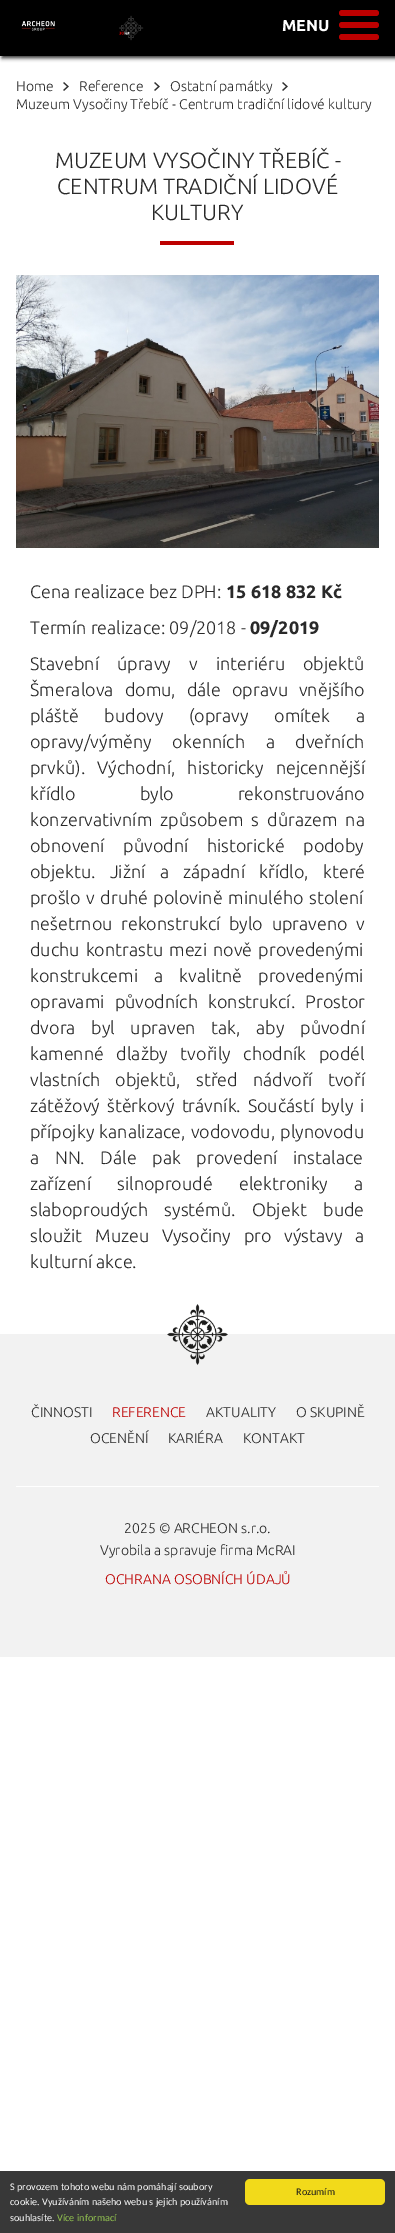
%!PS-Adobe-3.0
%%BoundingBox: 0 0 395 2233
%%LanguageLevel: 3
%%Pages: 1
%%EndComments
%%BeginProlog
/setalpha { dup .setfillconstantalpha .setstrokeconstantalpha } def
/rrect { 5 dict begin { /r /h /w /y /x } { exch def } forall
  x r add y moveto x w add y 2 copy h add r arct x w add y h add x 1 index r arct
  x y h add x y r arct x y 2 copy exch w add exch r arct closepath end } def
/softshadow { 12 dict begin { /a /b /q /h /w /y /x } { exch def } forall gsave /was 0 def
  9 -2 -9 { dup b mul 4 div /e exch def 1 sub .425 mul 2.718 exch exp 1 add a .99 .min exch div /now exch def
    1 1 now sub 1 was sub div sub setalpha /was now def
    w h .min e 2 mul add 0 gt { x e sub y e sub w e 2 mul add h e 2 mul add
      q e add b .6 mul add w h .min 2 div e add .min 0 .max rrect fill } if } for grestore end } def
/drawimage { 5 dict begin { /h /w /y /x /name } { exch def } forall
  gsave x y translate w h scale
  w h 8 [w 0 0 h 0 0] name (r) file false 3 colorimage grestore end } def
%%EndProlog
%%BeginSetup
<< /PageSize [395 2233] /PageUsesTransparency true >> setpagedevice
%%EndSetup
%%Page: 1 1
0 .pushpdf14devicefilter
0 2233 translate 1 -1 scale
4 setmiterlimit
1 setgray
0 0 395 2233 rectfill
0.161 setgray
2 2 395 56 0 2 1 softshadow
0 setgray
0 0 395 56 rectfill
(images/1.raw) 21 21 34 10 drawimage
(images/2.raw) 119 15 25 26 drawimage
0.741 0 0 setrgbcolor
339 10 40 6 3 rrect fill
339 22 40 6 3 rrect fill
339 34 40 6 3 rrect fill
(images/3.raw) 63 82 6 9 drawimage
(images/3.raw) 154 82 6 9 drawimage
(images/3.raw) 282 82 6 9 drawimage
160 241 74 4 rectfill
(images/4.raw) 16 275 363 273 drawimage
0.949 setgray
0 1334 395 323 rectfill
1 setgray
16 1486 363 1 rectfill
(images/5.raw) 167 1304 61 61 drawimage
0.22 setgray
0 2171 395 62 rectfill
0.949 0.855 0.102 setrgbcolor
245 2179 140 26 5 rrect fill
/Ubuntu-Bold [16 0 0 -16 0 0] selectfont
1 setgray
282 31 moveto (MENU) show
/Ubuntu-Light [14 0 0 -14 0 0] selectfont
0.161 setgray
16 91 moveto (Home) show
79 91 moveto (Reference) show
170 91 moveto (Ostatní památky) show
16 109 moveto (Muzeum Vysočiny Třebíč - Centrum tradiční lidové kultury) show
/Ubuntu-Light [22 0 0 -22 0 0] selectfont
55 168 moveto (MUZEUM VYSOČINY TŘEBÍČ -) show
57 194 moveto (CENTRUM TRADIČNÍ LIDOVÉ) show
151 220 moveto (KULTURY) show
/Ubuntu-Light [18 0 0 -18 0 0] selectfont
30 598 moveto (Cena realizace bez DPH:) show
/Ubuntu-Bold [18 0 0 -18 0 0] selectfont
226 598 moveto (15 618 832 Kč) show
/Ubuntu-Light [18 0 0 -18 0 0] selectfont
30 634 moveto (Termín realizace: 09/2018 -) show
/Ubuntu-Bold [18 0 0 -18 0 0] selectfont
250 634 moveto (09/2019) show
/Ubuntu-Light [18 0 0 -18 0 0] selectfont
30 670 moveto 14 0 32 (Stavební úpravy v interiéru objektů) widthshow
30 696 moveto 7 0 32 (Šmeralova domu, dále opravu vnějšího) widthshow
30 722 moveto 21.5 0 32 (pláště budovy \(opravy omítek a) widthshow
30 748 moveto 16.5 0 32 (opravy/výměny okenních a dveřních) widthshow
30 774 moveto 8 0 32 (prvků\). Východní, historicky nejcennější) widthshow
30 800 moveto 60 0 32 (křídlo bylo rekonstruováno) widthshow
30 826 moveto 4 0 32 (konzervativním způsobem s důrazem na) widthshow
30 852 moveto 14.5 0 32 (obnovení původní historické podoby) widthshow
30 878 moveto 10 0 32 (objektu. Jižní a západní křídlo, které) widthshow
30 904 moveto 1.5 0 32 (prošlo v druhé polovině minulého stolení) widthshow
30 930 moveto 4.5 0 32 (nešetrnou rekonstrukcí bylo upraveno v) widthshow
30 956 moveto 2 0 32 (duchu kontrastu mezi nově provedenými) widthshow
30 982 moveto 12 0 32 (konstrukcemi a kvalitně provedenými) widthshow
30 1008 moveto 6 0 32 (opravami původních konstrukcí. Prostor) widthshow
30 1034 moveto 11.5 0 32 (dvora byl upraven tak, aby původní) widthshow
30 1060 moveto 8.5 0 32 (kamenné dlažby tvořily chodník podél) widthshow
30 1086 moveto 11 0 32 (vlastních objektů, střed nádvoří tvoří) widthshow
30 1112 moveto 2.75 0 32 (zátěžový štěrkový trávník. Součástí byly i) widthshow
30 1138 moveto 1 0 32 (přípojky kanalizace, vodovodu, plynovodu) widthshow
30 1164 moveto 11.5 0 32 (a NN. Dále pak provedení instalace) widthshow
30 1190 moveto 22 0 32 (zařízení silnoproudé elektroniky a) widthshow
30 1216 moveto 12.5 0 32 (slaboproudých systémů. Objekt bude) widthshow
30 1242 moveto 8.5 0 32 (sloužit Muzeu Vysočiny pro výstavy a) widthshow
30 1268 moveto (kulturní akce.) show
/Ubuntu-Light [14 0 0 -14 0 0] selectfont
31 1417 moveto (ČINNOSTI) show
0.741 0 0 setrgbcolor
112 1417 moveto (REFERENCE) show
0.161 setgray
206 1417 moveto (AKTUALITY) show
296 1417 moveto (O SKUPINĚ) show
90 1443 moveto (OCENĚNÍ) show
168 1443 moveto (KARIÉRA) show
243 1443 moveto (KONTAKT) show
124 1533 moveto (2025 © ARCHEON s.r.o.) show
100 1555 moveto (Vyrobila a spravuje firma McRAI) show
0.741 0 0 setrgbcolor
105 1584 moveto (OCHRANA OSOBNÍCH ÚDAJŮ) show
/Carlito-Regular [10.2 0 0 -10.2 0 0] selectfont
1 setgray
10 2190 moveto (S provozem tohoto webu nám pomáhají soubory) show
10 2205 moveto (cookie. Využíváním našeho webu s jejich používáním) show
10 2221 moveto (souhlasíte.) show
0.58 0.773 0.314 setrgbcolor
57 2221 moveto (Více informací) show
0.102 setgray
296 2195 moveto (Rozumím) show
.poppdf14devicefilter showpage
%%EOF
